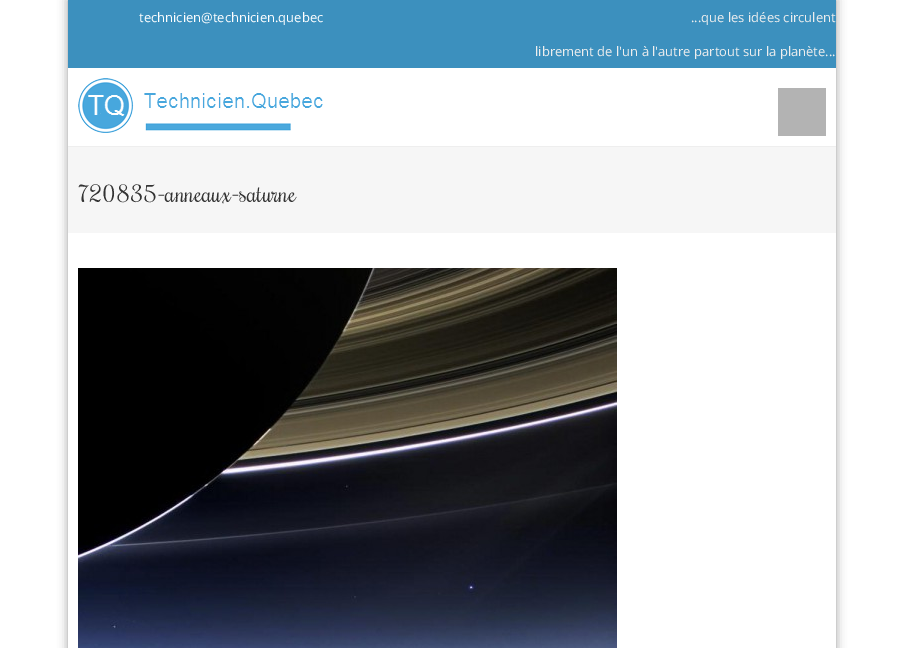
%!PS-Adobe-3.0
%%BoundingBox: 0 0 903 648
%%LanguageLevel: 3
%%Pages: 1
%%EndComments
%%BeginProlog
/setalpha { dup .setfillconstantalpha .setstrokeconstantalpha } def
/rrect { 5 dict begin { /r /h /w /y /x } { exch def } forall
  x r add y moveto x w add y 2 copy h add r arct x w add y h add x 1 index r arct
  x y h add x y r arct x y 2 copy exch w add exch r arct closepath end } def
/softshadow { 12 dict begin { /a /b /q /h /w /y /x } { exch def } forall gsave /was 0 def
  9 -2 -9 { dup b mul 4 div /e exch def 1 sub .425 mul 2.718 exch exp 1 add a .99 .min exch div /now exch def
    1 1 now sub 1 was sub div sub setalpha /was now def
    w h .min e 2 mul add 0 gt { x e sub y e sub w e 2 mul add h e 2 mul add
      q e add b .6 mul add w h .min 2 div e add .min 0 .max rrect fill } if } for grestore end } def
/drawimage { 5 dict begin { /h /w /y /x /name } { exch def } forall
  gsave x y translate w h scale
  w h 8 [w 0 0 h 0 0] name (r) file false 3 colorimage grestore end } def
%%EndProlog
%%BeginSetup
<< /PageSize [903 648] /PageUsesTransparency true >> setpagedevice
%%EndSetup
%%Page: 1 1
0 .pushpdf14devicefilter
0 648 translate 1 -1 scale
4 setmiterlimit
1 setgray
0 0 903 648 rectfill
gsave
newpath 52 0 moveto 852 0 lineto 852 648 lineto 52 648 lineto closepath 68 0 moveto 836 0 lineto 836 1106 lineto 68 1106 lineto closepath eoclip newpath
0.6 setgray
68 0 768 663 0 5 1 softshadow
grestore
0.235 0.565 0.745 setrgbcolor
68 0 768 68 rectfill
0.933 setgray
68 146 768 1 rectfill
(images/1.raw) 78 78 245 55 drawimage
0.702 setgray
778 88 48 48 rectfill
0.965 setgray
68 147 768 86 rectfill
(images/2.raw) 78 268 539 380 drawimage
/OpenSans-Regular [13 0 0 -13 0 0] selectfont
1 setgray
139 22 moveto (technicien@technicien.quebec) show
0.933 setgray
691 22 moveto (...que les idées circulent) show
535 56 moveto (librement de l'un à l'autre partout sur la planète...) show
/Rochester-Regular [24 0 0 -24 0 0] selectfont
0.2 setgray
78 202 moveto (720835-anneaux-saturne) show
.poppdf14devicefilter showpage
%%EOF
